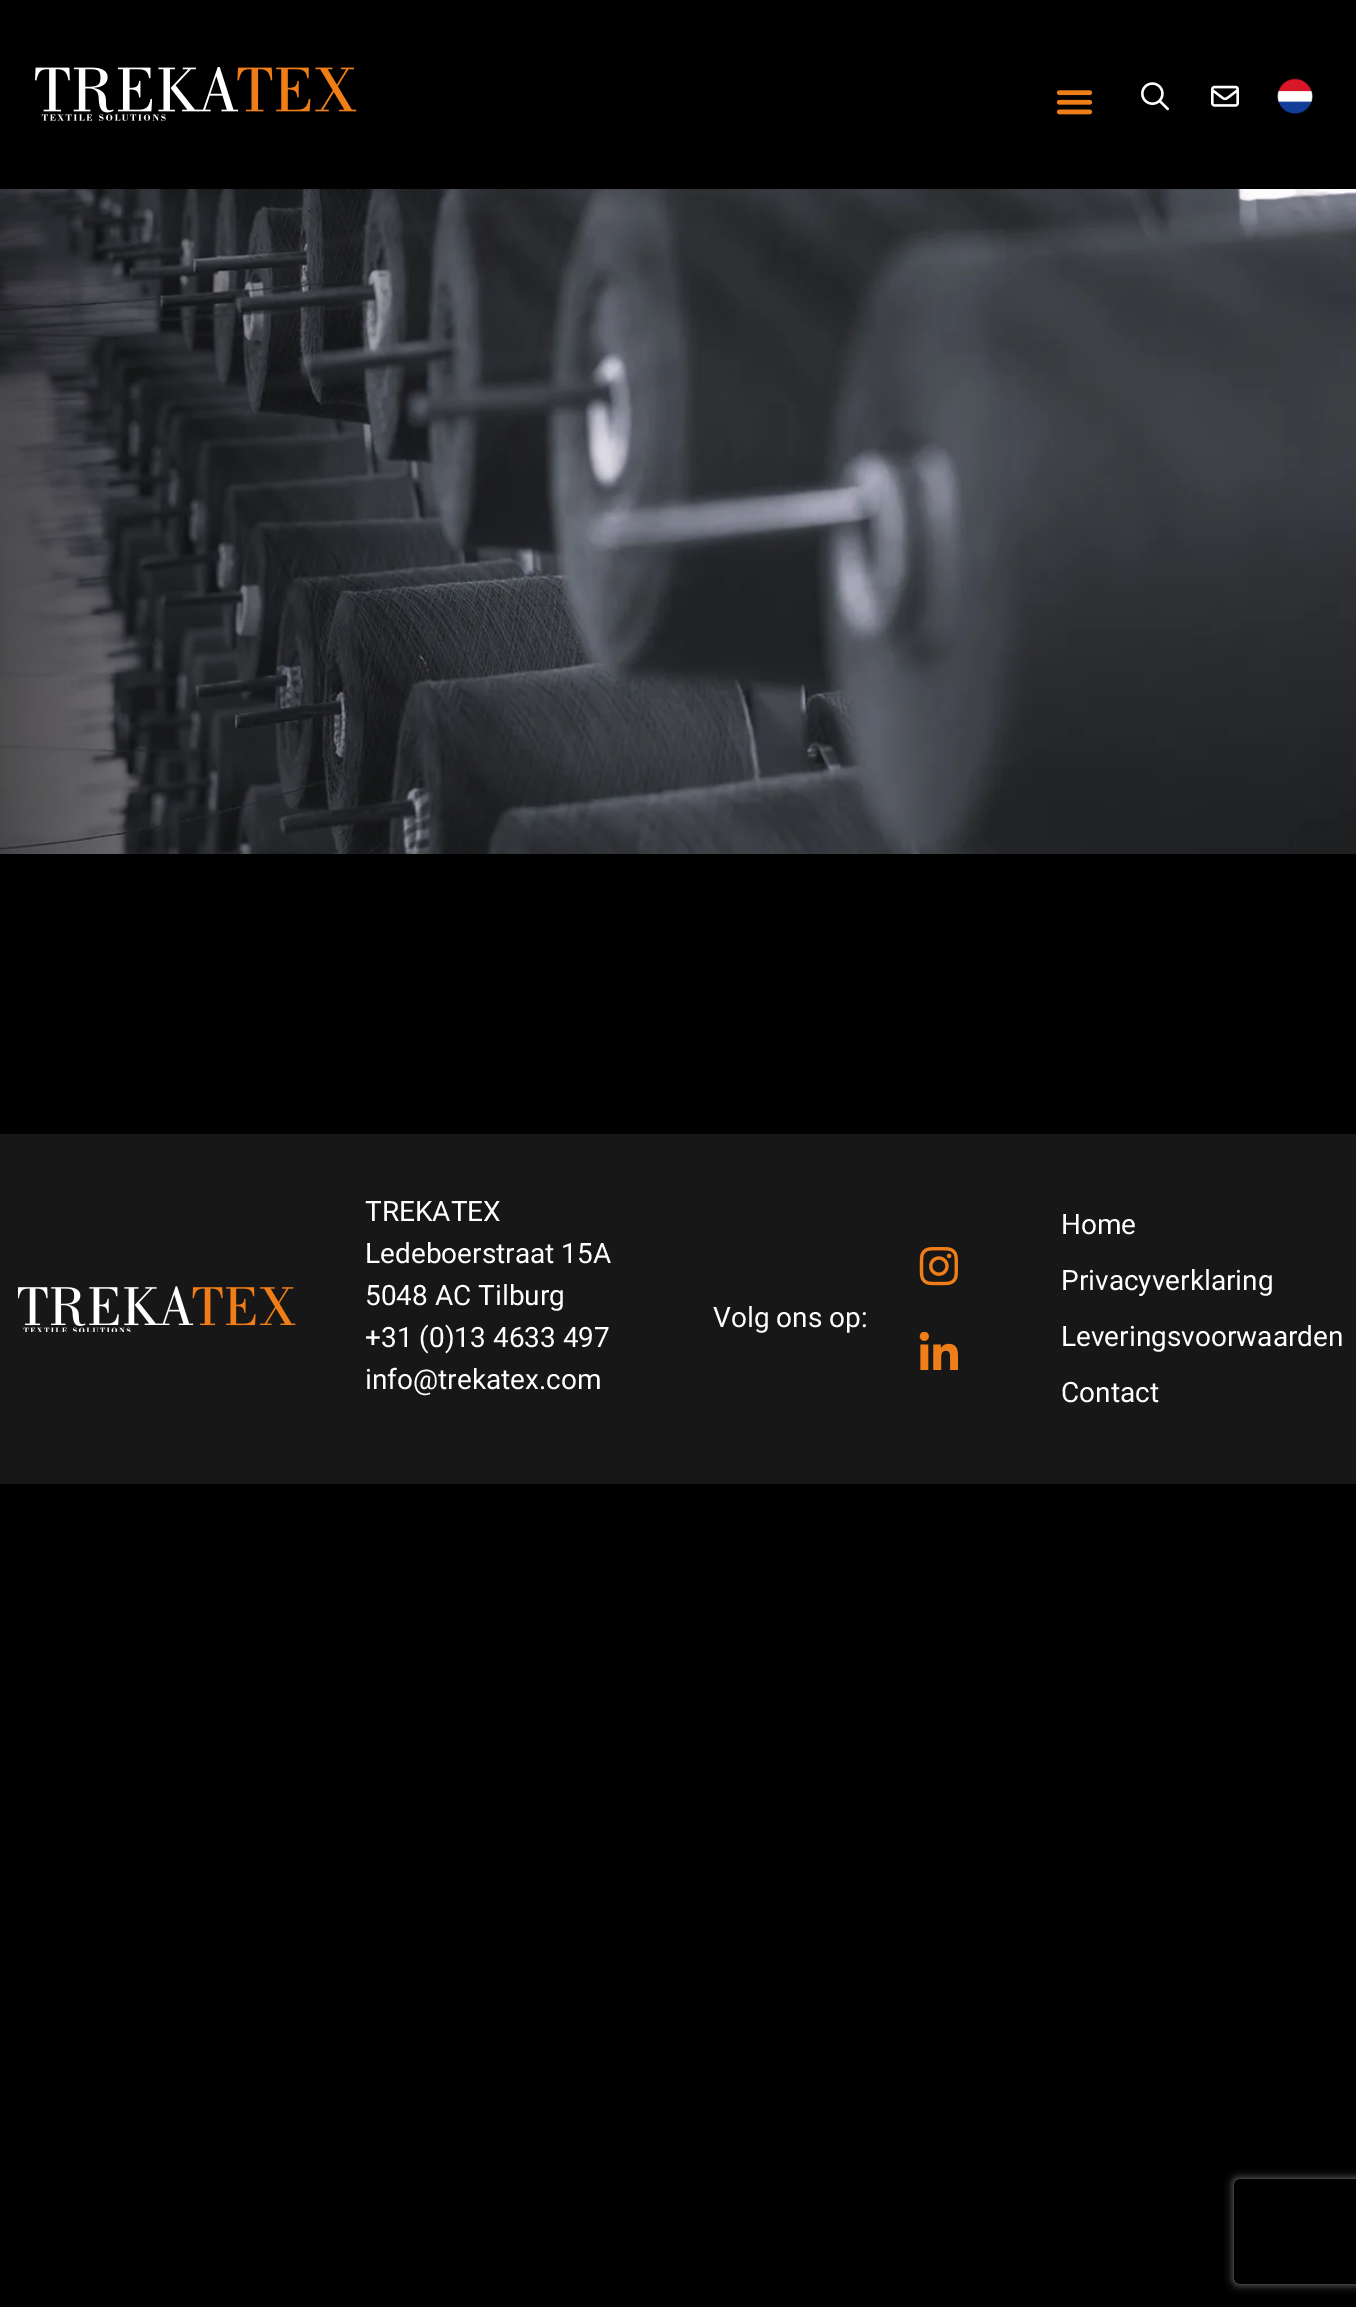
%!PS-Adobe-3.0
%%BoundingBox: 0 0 1356 2307
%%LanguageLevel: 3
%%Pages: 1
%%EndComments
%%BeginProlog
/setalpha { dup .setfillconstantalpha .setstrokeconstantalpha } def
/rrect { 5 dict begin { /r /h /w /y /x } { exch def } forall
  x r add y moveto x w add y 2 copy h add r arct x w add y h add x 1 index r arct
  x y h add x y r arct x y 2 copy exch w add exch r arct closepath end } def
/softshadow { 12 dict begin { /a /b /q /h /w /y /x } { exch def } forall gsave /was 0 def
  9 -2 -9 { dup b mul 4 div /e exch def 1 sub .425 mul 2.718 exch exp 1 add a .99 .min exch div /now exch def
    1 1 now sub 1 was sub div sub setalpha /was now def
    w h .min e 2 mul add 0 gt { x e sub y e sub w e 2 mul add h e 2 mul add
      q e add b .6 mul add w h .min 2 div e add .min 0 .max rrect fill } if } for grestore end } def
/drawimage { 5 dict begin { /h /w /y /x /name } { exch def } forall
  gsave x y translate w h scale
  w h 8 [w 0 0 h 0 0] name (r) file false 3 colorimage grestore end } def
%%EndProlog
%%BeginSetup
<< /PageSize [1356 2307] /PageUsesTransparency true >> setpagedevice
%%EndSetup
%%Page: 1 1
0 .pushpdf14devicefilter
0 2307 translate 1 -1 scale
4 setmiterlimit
0 setgray
0 0 1356 2307 rectfill
(images/1.raw) 35 67 322 54 drawimage
(images/2.raw) 1056 90 37 25 drawimage
(images/3.raw) 1141 82 28 29 drawimage
(images/4.raw) 1211 85 28 22 drawimage
(images/5.raw) 1277 78 36 36 drawimage
(images/6.raw) 0 189 1356 665 drawimage
0.094 0.09 0.09 setrgbcolor
0 1134 1356 350 rectfill
(images/7.raw) 18 1286 278 46 drawimage
(images/8.raw) 919 1247 39 39 drawimage
(images/9.raw) 919 1332 39 38 drawimage
gsave
newpath 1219 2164 moveto 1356 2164 lineto 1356 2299 lineto 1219 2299 lineto closepath 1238 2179 moveto 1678 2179 lineto 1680 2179 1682 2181 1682 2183 curveto 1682 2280 lineto 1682 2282 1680 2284 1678 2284 curveto 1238 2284 lineto 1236 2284 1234 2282 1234 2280 curveto 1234 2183 lineto 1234 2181 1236 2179 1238 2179 curveto closepath eoclip newpath
0.502 setgray
1234 2179 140 105 4 4.5 1 softshadow
grestore
/Roboto-Regular [28 0 0 -28 0 0] selectfont
1 setgray
365 1221 moveto (TREKATEX) show
365 1263 moveto (Ledeboerstraat 15A) show
365 1305 moveto (5048 AC Tilburg) show
365 1347 moveto (+31 \(0\)13 4633 497) show
365 1389 moveto (info@trekatex.com) show
713 1327 moveto (Volg ons op:) show
1061 1234 moveto (Home) show
1061 1290 moveto (Privacyverklaring) show
1061 1346 moveto (Leveringsvoorwaarden) show
1061 1402 moveto (Contact) show
.poppdf14devicefilter showpage
%%EOF
